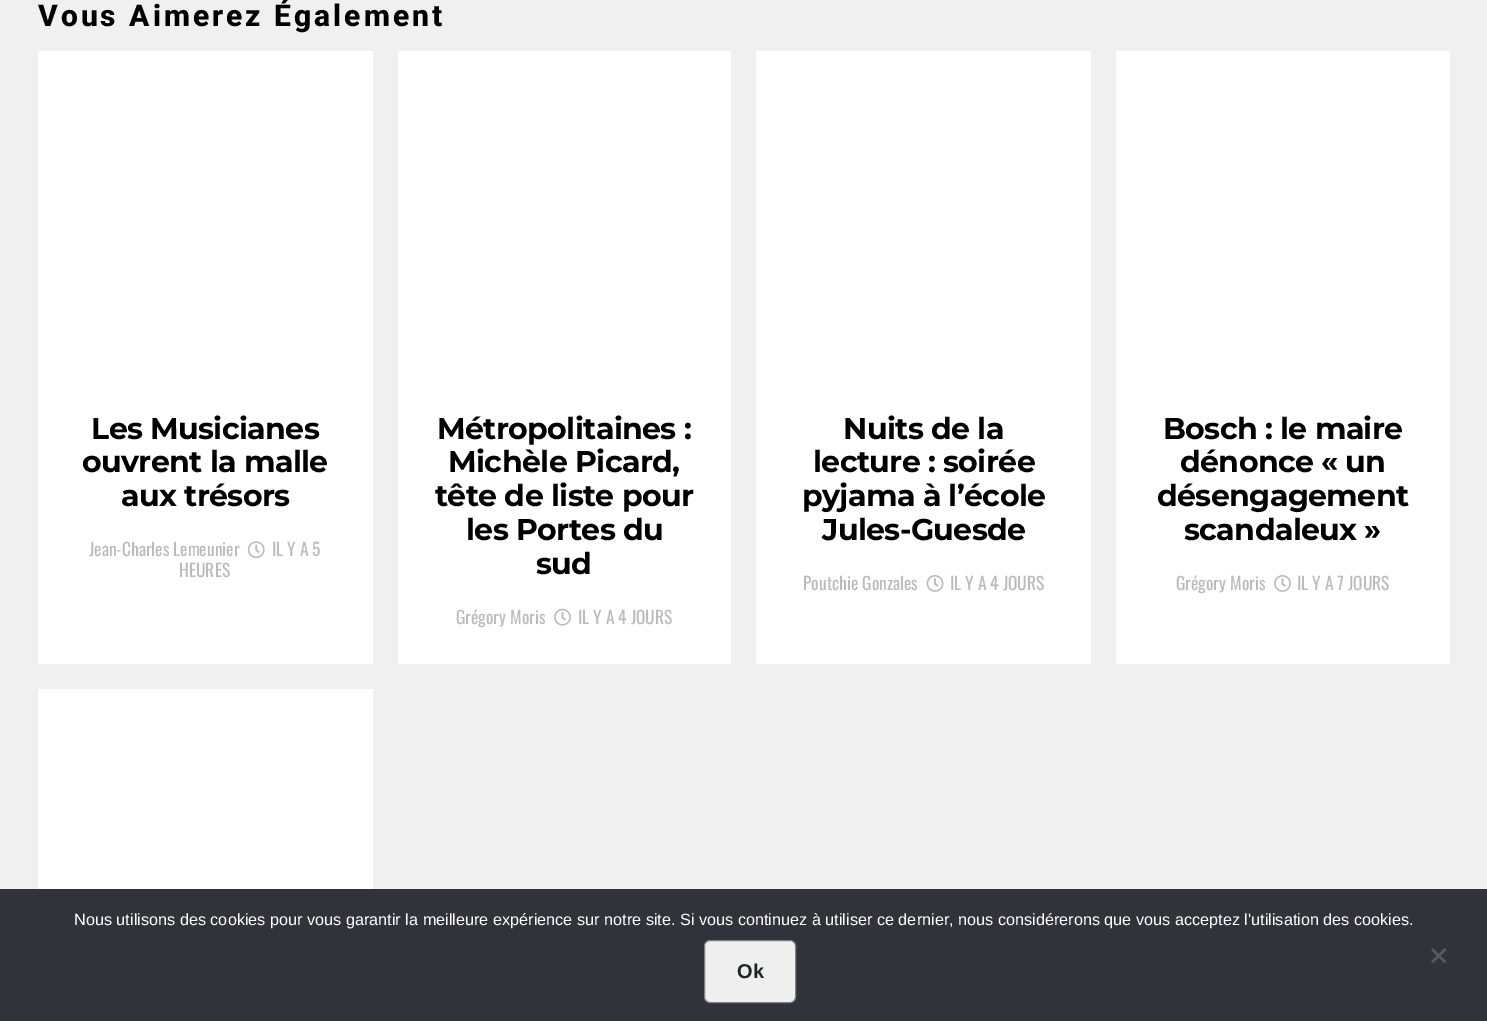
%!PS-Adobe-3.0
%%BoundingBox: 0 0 1487 1021
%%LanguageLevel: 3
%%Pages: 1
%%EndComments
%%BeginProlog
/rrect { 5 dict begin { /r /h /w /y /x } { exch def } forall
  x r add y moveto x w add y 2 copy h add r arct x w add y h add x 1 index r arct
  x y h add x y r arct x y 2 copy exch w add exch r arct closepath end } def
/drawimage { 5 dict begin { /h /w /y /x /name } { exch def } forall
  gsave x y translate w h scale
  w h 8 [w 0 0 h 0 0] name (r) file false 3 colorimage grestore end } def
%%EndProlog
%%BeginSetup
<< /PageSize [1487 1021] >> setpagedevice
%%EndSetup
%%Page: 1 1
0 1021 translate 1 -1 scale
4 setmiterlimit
0.941 setgray
0 0 1487 1021 rectfill
1 setgray
38 51 335 613 rectfill
(images/1.raw) 247 541 18 18 drawimage
398 51 333 613 rectfill
(images/2.raw) 554 608 17 18 drawimage
756 51 335 613 rectfill
(images/3.raw) 926 575 18 17 drawimage
1116 51 334 613 rectfill
(images/4.raw) 1274 575 17 17 drawimage
38 689 335 200 rectfill
0.196 0.196 0.227 setrgbcolor
0 889 1487 132 rectfill
0.349 0.349 0.365 setrgbcolor
newpath 1444.5 948 moveto 1446.5 950 lineto 1433 963 lineto 1431 961.5 lineto closepath fill
newpath 1431 950 moveto 1433 948 lineto 1446.5 961.5 lineto 1444.5 963 lineto closepath fill
0.937 setgray
704.5 940.5 91 62 5.5 rrect gsave fill grestore
0.502 setgray
stroke
/Roboto-ExtraBold [30 0 0 -30 0 0] selectfont
0 setgray
38 26 moveto 3 0 (Vous Aimerez Également) ashow
/Montserrat-Bold [30 0 0 -30 0 0] selectfont
91 439 moveto -0.6 0 (Les Musicianes) ashow
82 472 moveto -0.6 0 (ouvrent la malle) ashow
121 506 moveto -0.6 0 (aux trésors) ashow
/Oswald-Regular [17.5 0 0 -17.5 0 0] selectfont
0.733 setgray
89 556 moveto (Jean-Charles Lemeunier) show
272 556 moveto (IL Y A 5) show
179 577 moveto (HEURES) show
/Montserrat-Bold [30 0 0 -30 0 0] selectfont
0 setgray
437 439 moveto -0.6 0 (Métropolitaines :) ashow
448 472 moveto -0.6 0 (Michèle Picard,) ashow
435 506 moveto -0.6 0 (tête de liste pour) ashow
466 540 moveto -0.6 0 (les Portes du) ashow
536 574 moveto -0.6 0 (sud) ashow
/Oswald-Regular [17.5 0 0 -17.5 0 0] selectfont
0.733 setgray
456 624 moveto (Grégory Moris) show
578 624 moveto (IL Y A 4 JOURS) show
/Montserrat-Bold [30 0 0 -30 0 0] selectfont
0 setgray
843 439 moveto -0.6 0 (Nuits de la) ashow
813 472 moveto -0.6 0 (lecture : soirée) ashow
802 506 moveto -0.6 0 (pyjama à l’école) ashow
822 540 moveto -0.6 0 (Jules-Guesde) ashow
/Oswald-Regular [17.5 0 0 -17.5 0 0] selectfont
0.733 setgray
803 590 moveto (Poutchie Gonzales) show
950 590 moveto (IL Y A 4 JOURS) show
/Montserrat-Bold [30 0 0 -30 0 0] selectfont
0 setgray
1163 439 moveto -0.6 0 (Bosch : le maire) ashow
1180 472 moveto -0.6 0 (dénonce « un) ashow
1157 506 moveto -0.6 0 (désengagement) ashow
1184 540 moveto -0.6 0 (scandaleux ») ashow
/Oswald-Regular [17.5 0 0 -17.5 0 0] selectfont
0.733 setgray
1176 590 moveto (Grégory Moris) show
1297 590 moveto (IL Y A 7 JOURS) show
/LiberationSans-Regular [16.25 0 0 -16.25 0 0] selectfont
1 setgray
74 925 moveto (Nous utilisons des cookies pour vous garantir la meilleure expérience sur notre site. Si vous continuez à utiliser ce dernier, nous considérerons que vous acceptez l'utilisation des cookies.) show
/LiberationSans-Bold [20 0 0 -20 0 0] selectfont
0.129 0.145 0.161 setrgbcolor
737 978 moveto (Ok) show
showpage
%%EOF
